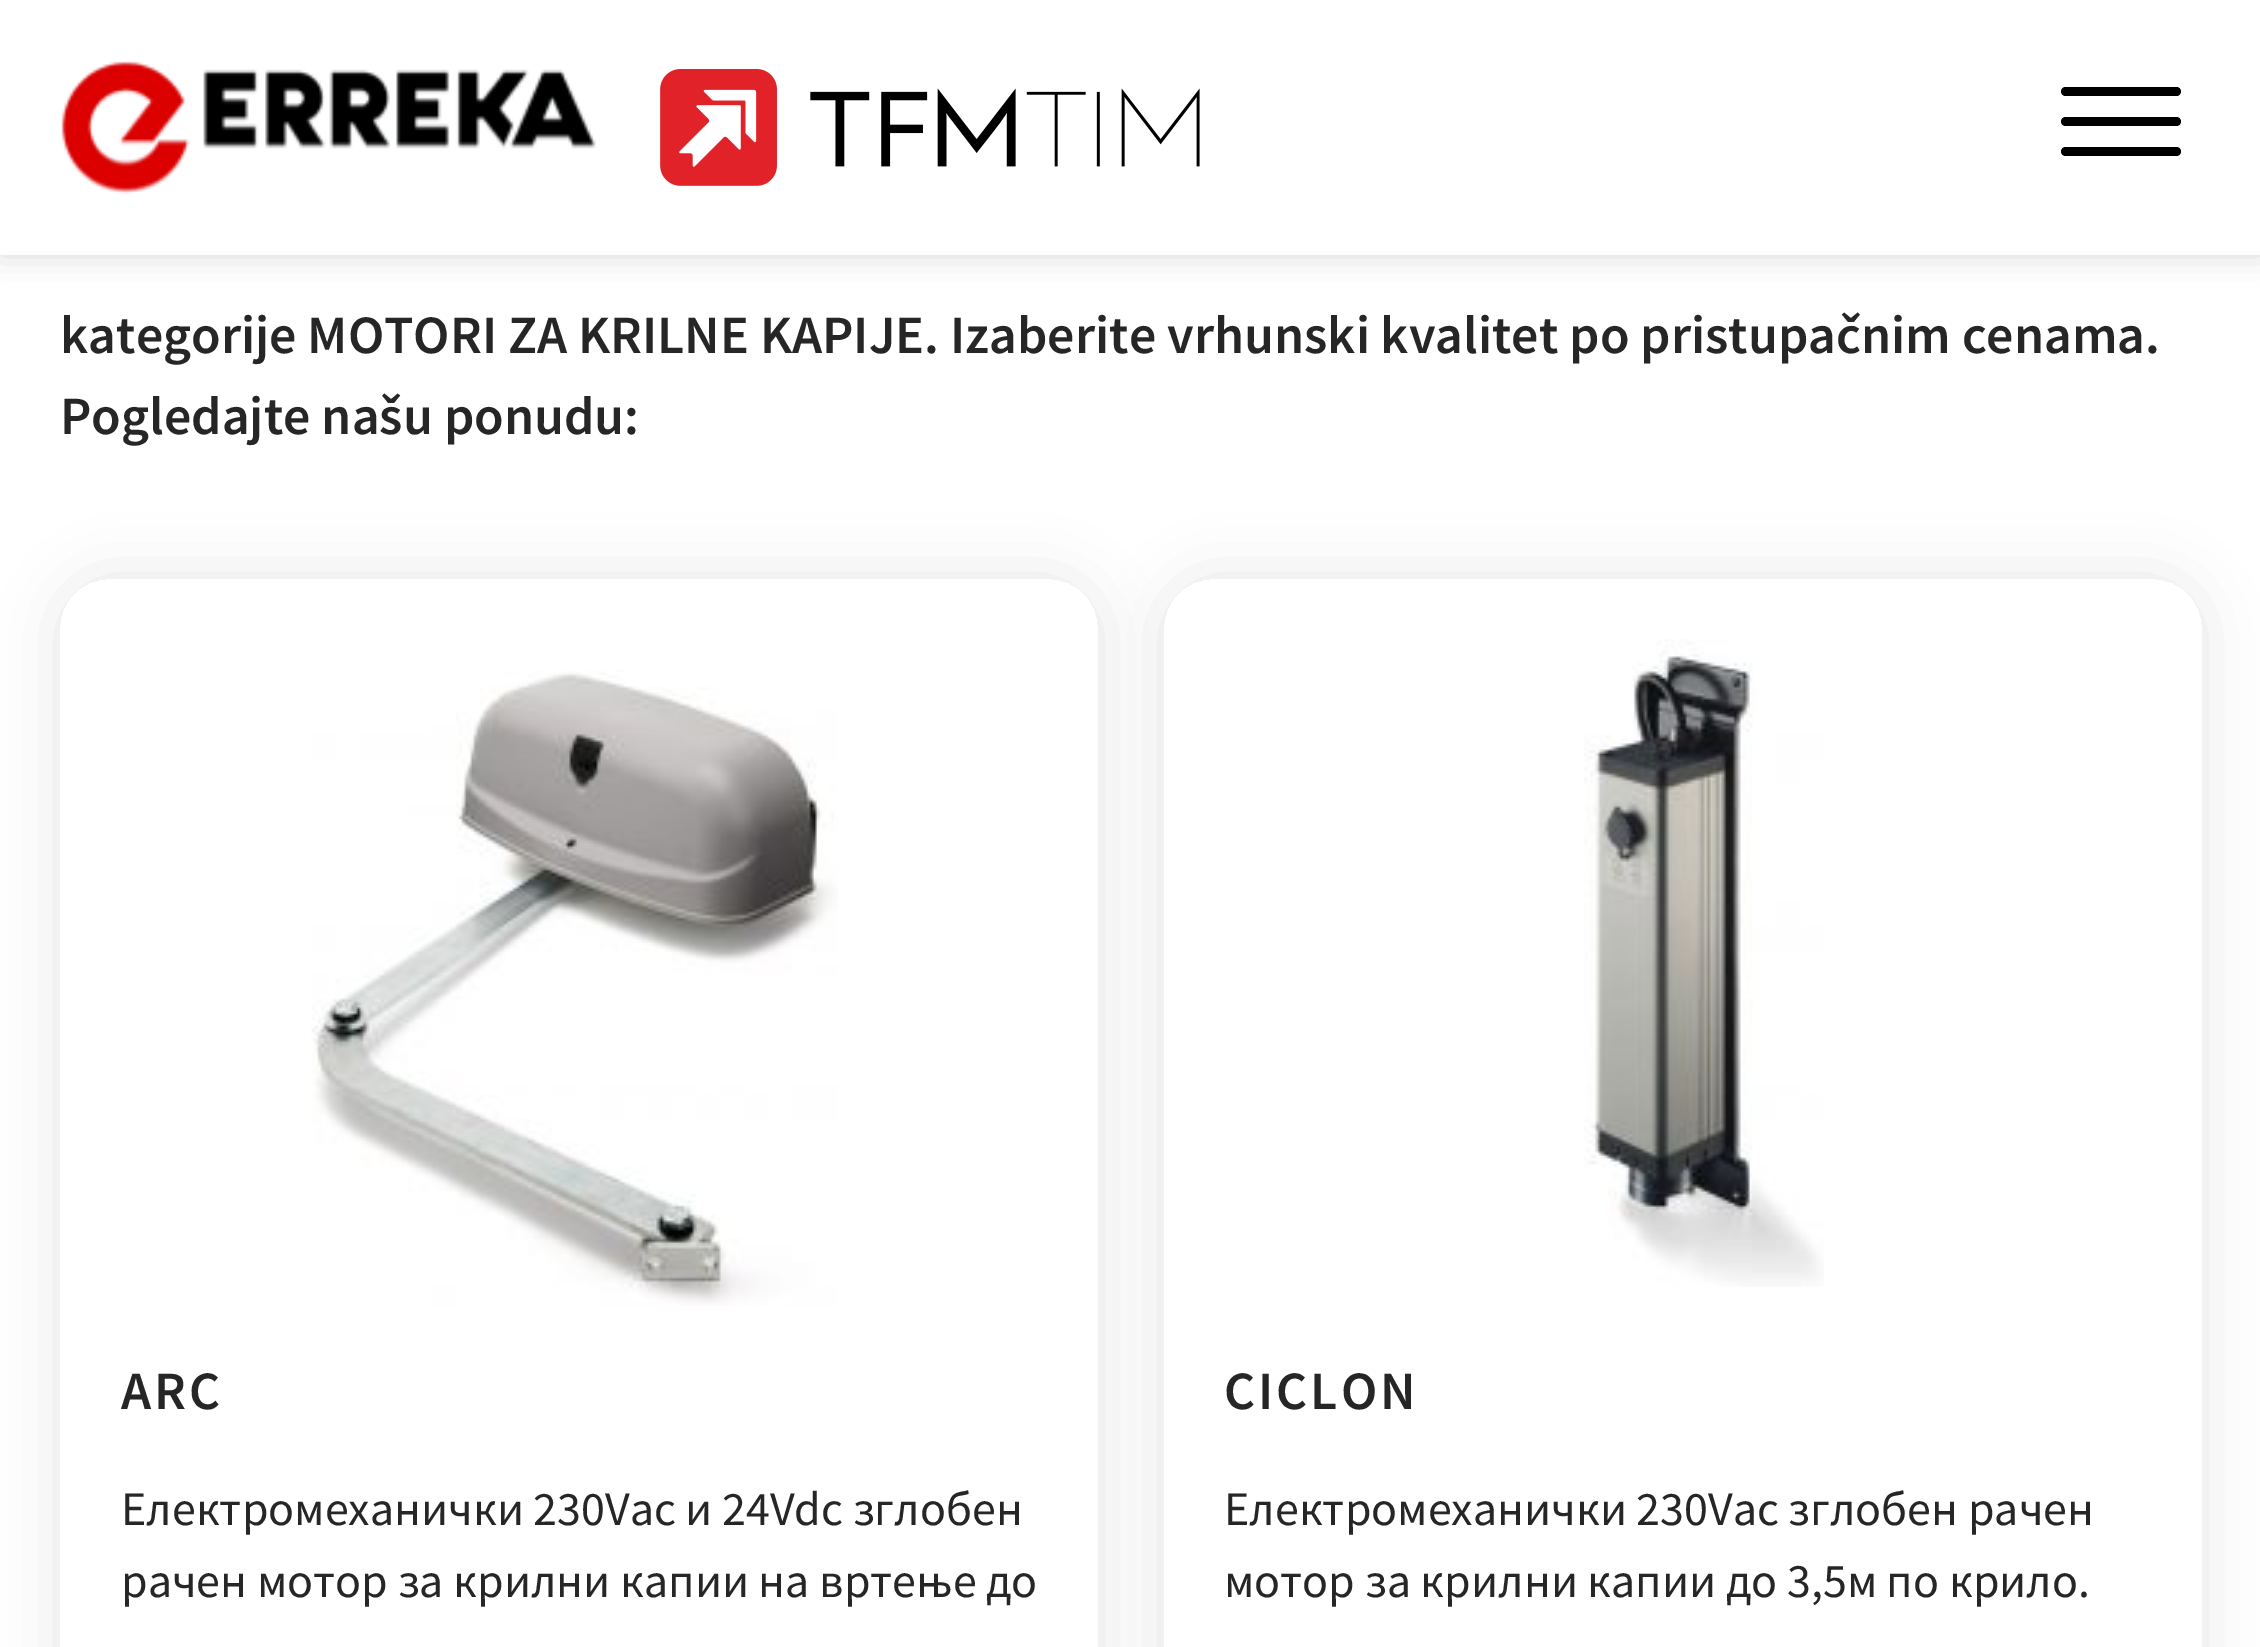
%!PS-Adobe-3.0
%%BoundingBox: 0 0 2260 1647
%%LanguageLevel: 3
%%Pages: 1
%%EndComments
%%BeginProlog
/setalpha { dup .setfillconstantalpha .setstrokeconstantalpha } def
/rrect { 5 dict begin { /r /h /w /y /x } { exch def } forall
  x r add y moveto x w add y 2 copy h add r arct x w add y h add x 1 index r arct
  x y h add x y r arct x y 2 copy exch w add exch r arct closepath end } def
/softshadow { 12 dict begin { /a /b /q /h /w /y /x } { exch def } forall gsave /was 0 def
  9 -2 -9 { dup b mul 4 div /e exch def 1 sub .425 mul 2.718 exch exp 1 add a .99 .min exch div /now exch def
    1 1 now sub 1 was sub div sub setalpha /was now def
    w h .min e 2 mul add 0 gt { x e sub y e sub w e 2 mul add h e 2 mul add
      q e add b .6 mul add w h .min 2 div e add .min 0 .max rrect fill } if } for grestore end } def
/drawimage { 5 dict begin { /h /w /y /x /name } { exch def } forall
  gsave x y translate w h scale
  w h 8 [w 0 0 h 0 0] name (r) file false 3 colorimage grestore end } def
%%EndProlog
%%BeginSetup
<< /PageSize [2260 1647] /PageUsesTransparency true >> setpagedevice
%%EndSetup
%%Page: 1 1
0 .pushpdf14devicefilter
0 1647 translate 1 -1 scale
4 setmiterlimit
1 setgray
0 0 2260 1647 rectfill
0 setgray
0 0 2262 255 0 15 0.15 softshadow
1 setgray
0 0 2260 255 rectfill
(images/1.raw) 61 61 535 134 drawimage
(images/2.raw) 660 69 540 117 drawimage
0 setgray
newpath 2065.5 87 moveto 2121 87 lineto 2121 96 lineto 2065.5 96 lineto 2063 96 2061 94 2061 91.5 curveto 2061 89 2063 87 2065.5 87 curveto closepath fill
newpath 2121 87 moveto 2176.5 87 lineto 2179 87 2181 89 2181 91.5 curveto 2181 94 2179 96 2176.5 96 curveto 2121 96 lineto closepath fill
newpath 2065.5 117 moveto 2121 117 lineto 2121 126 lineto 2065.5 126 lineto 2063 126 2061 124 2061 121.5 curveto 2061 119 2063 117 2065.5 117 curveto closepath fill
newpath 2121 117 moveto 2176.5 117 lineto 2179 117 2181 119 2181 121.5 curveto 2181 124 2179 126 2176.5 126 curveto 2121 126 lineto closepath fill
newpath 2065.5 147 moveto 2121 147 lineto 2121 156 lineto 2065.5 156 lineto 2063 156 2061 154 2061 151.5 curveto 2061 149 2063 147 2065.5 147 curveto closepath fill
newpath 2121 147 moveto 2176.5 147 lineto 2179 147 2181 149 2181 151.5 curveto 2181 154 2179 156 2176.5 156 curveto 2121 156 lineto closepath fill
gsave
newpath 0 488 moveto 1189 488 lineto 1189 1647 lineto 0 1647 lineto closepath 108 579 moveto 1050 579 lineto 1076.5 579 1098 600.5 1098 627 curveto 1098 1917 lineto 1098 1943.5 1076.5 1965 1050 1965 curveto 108 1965 lineto 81.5 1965 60 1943.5 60 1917 curveto 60 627 lineto 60 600.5 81.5 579 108 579 curveto closepath eoclip newpath
60 579 1038 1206 48 30 0.1 softshadow
grestore
(images/3.raw) 311 670 527 636 drawimage
gsave
newpath 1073 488 moveto 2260 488 lineto 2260 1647 lineto 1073 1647 lineto closepath 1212 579 moveto 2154 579 lineto 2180.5 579 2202 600.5 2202 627 curveto 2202 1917 lineto 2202 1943.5 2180.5 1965 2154 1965 curveto 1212 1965 lineto 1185.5 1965 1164 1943.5 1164 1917 curveto 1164 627 lineto 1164 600.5 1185.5 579 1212 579 curveto closepath eoclip newpath
1164 579 1038 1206 48 30 0.1 softshadow
grestore
(images/4.raw) 1584 639 240 648 drawimage
/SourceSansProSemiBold-SemiBold [54 0 0 -54 0 0] selectfont
0.149 setgray
60 353 moveto (kategorije MOTORI ZA KRILNE KAPIJE. Izaberite vrhunski kvalitet po pristupačnim cenama.) show
60 434 moveto (Pogledajte našu ponudu:) show
121 1409 moveto 3 0 (ARC) ashow
/SourceSansPro-Regular [48 0 0 -48 0 0] selectfont
121 1525 moveto (Електромеханички 230Vac и 24Vdc зглобен) show
121 1597 moveto (рачен мотор за крилни капии на вртење до) show
/SourceSansProSemiBold-SemiBold [54 0 0 -54 0 0] selectfont
1224 1409 moveto 3 0 (CICLON) ashow
/SourceSansPro-Regular [48 0 0 -48 0 0] selectfont
1224 1525 moveto (Електромеханички 230Vac зглобен рачен) show
1224 1597 moveto (мотор за крилни капии до 3,5м по крило.) show
.poppdf14devicefilter showpage
%%EOF
